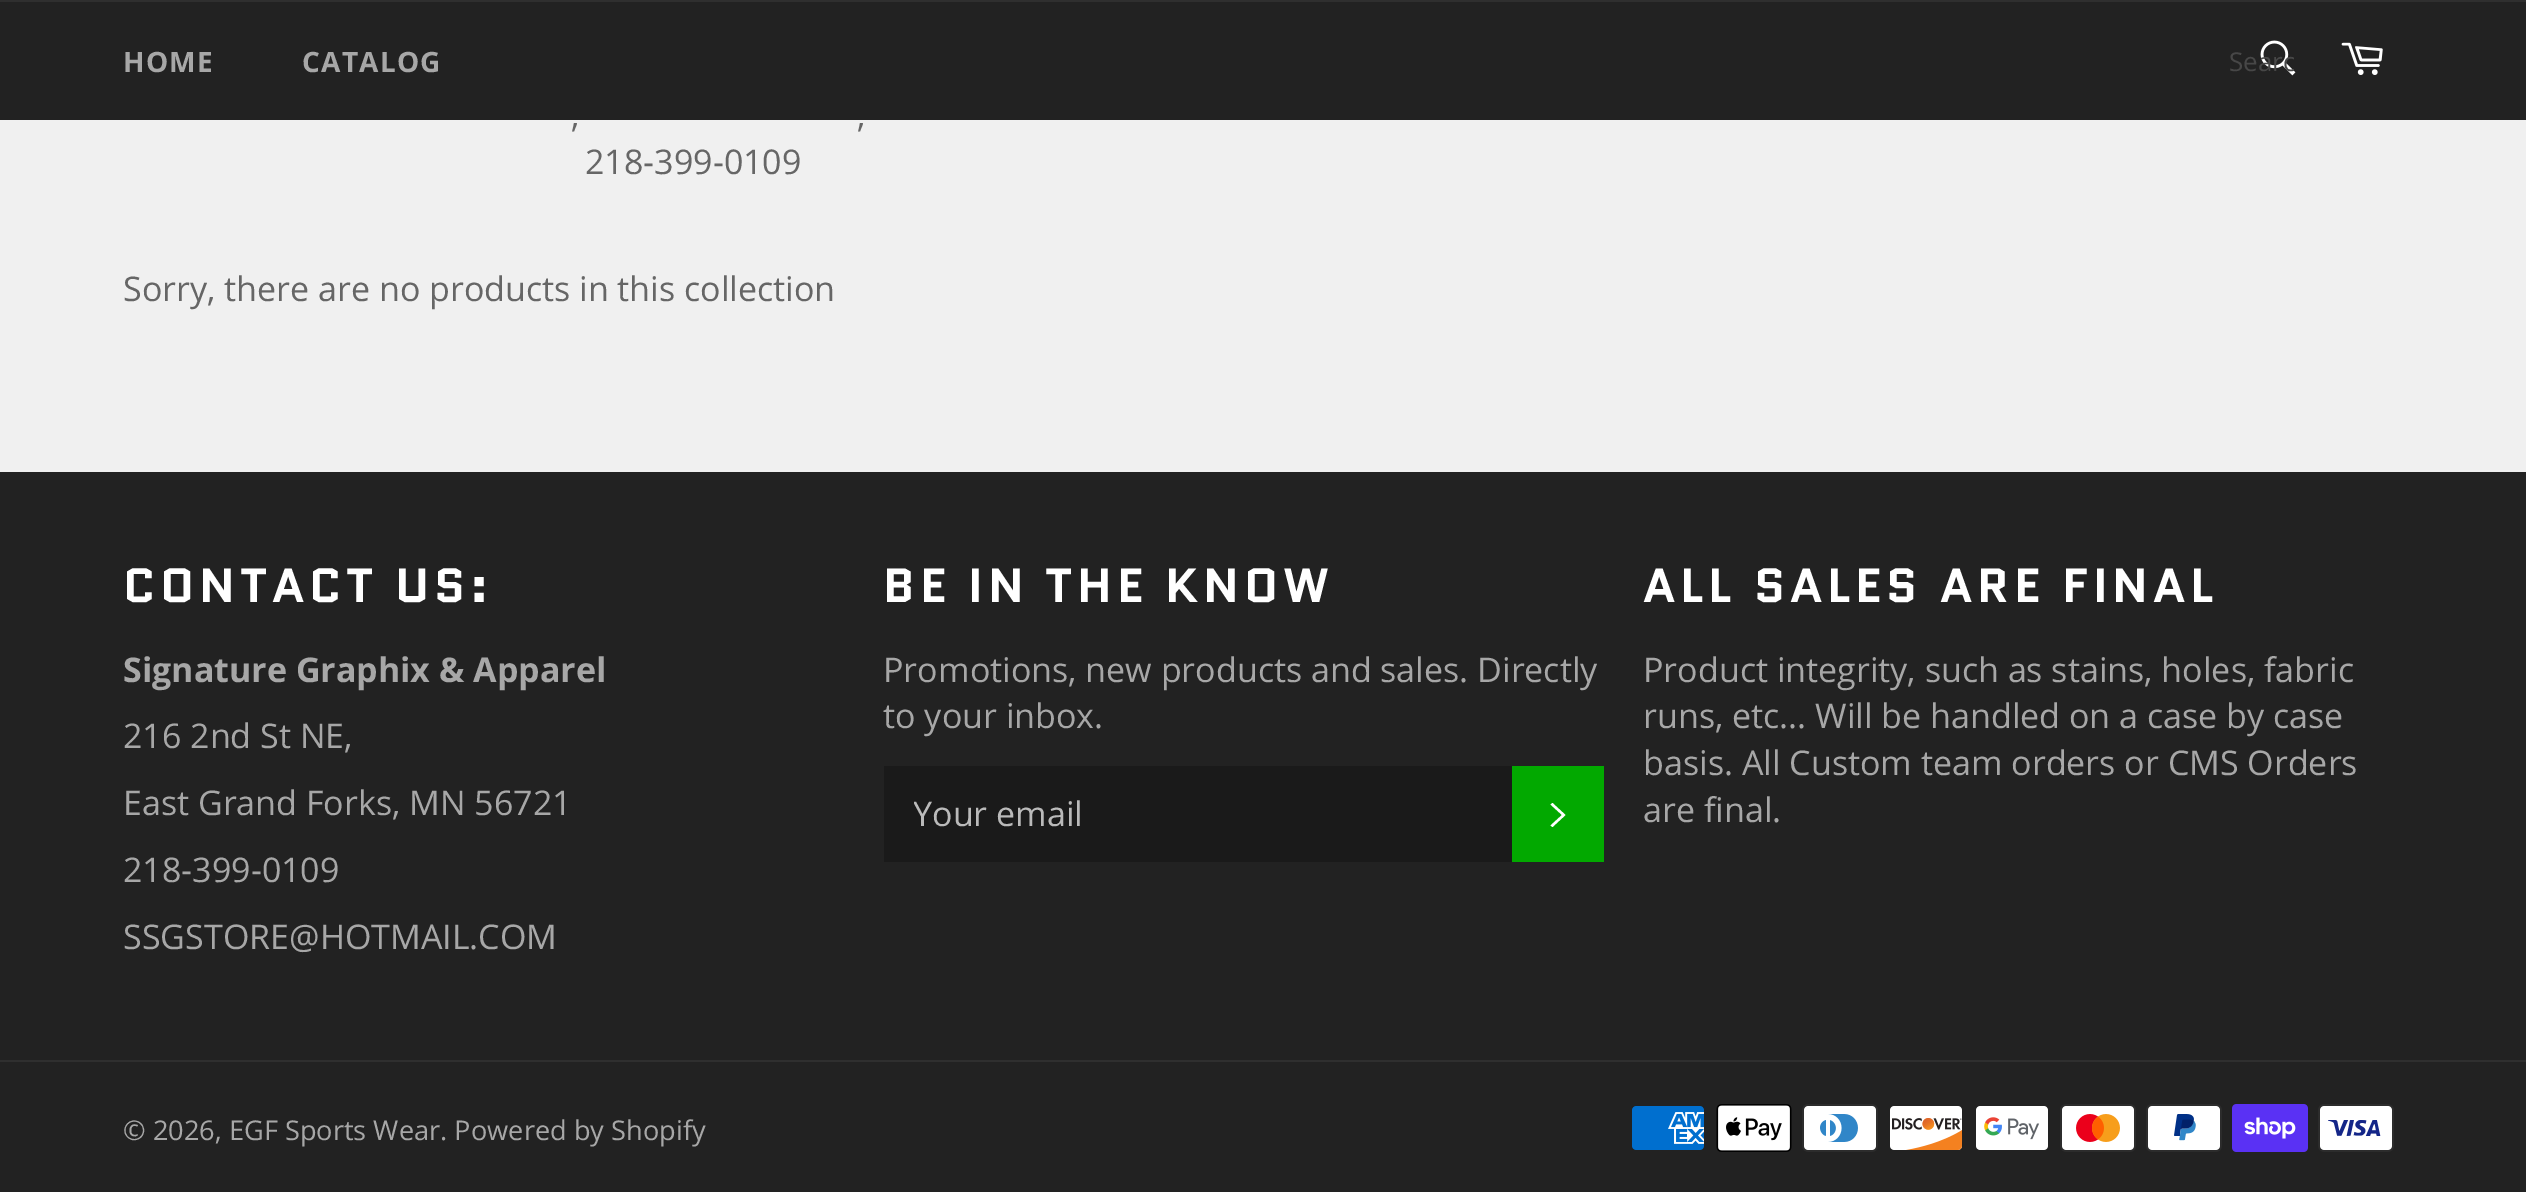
%!PS-Adobe-3.0
%%BoundingBox: 0 0 2526 1192
%%LanguageLevel: 3
%%Pages: 1
%%EndComments
%%BeginProlog
/drawimage { 5 dict begin { /h /w /y /x /name } { exch def } forall
  gsave x y translate w h scale
  w h 8 [w 0 0 h 0 0] name (r) file false 3 colorimage grestore end } def
%%EndProlog
%%BeginSetup
<< /PageSize [2526 1192] >> setpagedevice
%%EndSetup
%%Page: 1 1
0 1192 translate 1 -1 scale
4 setmiterlimit
0.941 setgray
0 0 2526 1192 rectfill
0.133 setgray
0 2 2526 118 rectfill
0.184 setgray
0 0 2526 2 rectfill
(images/1.raw) 2260 40 36 36 drawimage
(images/2.raw) 2341 42 42 33 drawimage
0.133 setgray
0 472 2526 720 rectfill
0.102 setgray
884 766 628 96 rectfill
0.008 0.663 0 setrgbcolor
1512 766 92 96 rectfill
1 setgray
newpath 1550.5 804.5 moveto 1552.5 803 lineto 1565.5 815 lineto 1552.5 827 lineto 1550.5 825.5 lineto 1562 815 lineto closepath fill
0.184 setgray
0 1060 2526 2 rectfill
(images/3.raw) 1632 1106 72 44 drawimage
(images/4.raw) 1716 1104 76 48 drawimage
(images/5.raw) 1802 1104 76 48 drawimage
(images/6.raw) 1890 1106 73 44 drawimage
(images/7.raw) 1976 1106 72 44 drawimage
(images/8.raw) 2060 1104 76 48 drawimage
(images/9.raw) 2146 1104 76 48 drawimage
(images/10.raw) 2232 1104 76 48 drawimage
(images/11.raw) 2318 1104 76 48 drawimage
/OpenSans-Bold [28 0 0 -28 0 0] selectfont
0.655 setgray
123 72 moveto 1.25 0 (HOME) ashow
302 72 moveto 1.25 0 (CATALOG) ashow
gsave
2230 44 64 36 rectclip
/OpenSans-Regular [26 0 0 -26 0 0] selectfont
0.278 setgray
2229 71 moveto (Searc) show
grestore
/OpenSans-Regular [34 0 0 -34 0 0] selectfont
0.4 setgray
571 127 moveto (,) show
857 127 moveto (,) show
585 174 moveto (218-399-0109) show
123 301 moveto (Sorry, there are no products in this collection) show
/Quantico-Bold [48 0 0 -48 0 0] selectfont
1 setgray
123 602 moveto 4.75 0 (CONTACT US:) ashow
/OpenSans-Bold [34 0 0 -34 0 0] selectfont
0.655 setgray
123 682 moveto (Signature Graphix & Apparel) show
/OpenSans-Regular [34 0 0 -34 0 0] selectfont
123 748 moveto (216 2nd St NE,) show
123 815 moveto (East Grand Forks, MN 56721) show
123 882 moveto (218-399-0109) show
123 949 moveto (SSGSTORE@HOTMAIL.COM) show
/Quantico-Bold [48 0 0 -48 0 0] selectfont
1 setgray
883 602 moveto 4.75 0 (BE IN THE KNOW) ashow
/OpenSans-Regular [34 0 0 -34 0 0] selectfont
0.655 setgray
883 682 moveto (Promotions, new products and sales. Directly) show
883 728 moveto (to your inbox.) show
gsave
914 790 568 46 rectclip
0.729 setgray
913 826 moveto (Your email) show
grestore
/Quantico-Bold [48 0 0 -48 0 0] selectfont
1 setgray
1643 602 moveto 4.75 0 (ALL SALES ARE FINAL) ashow
/OpenSans-Regular [34 0 0 -34 0 0] selectfont
0.655 setgray
1643 682 moveto (Product integrity, such as stains, holes, fabric) show
1643 728 moveto (runs, etc... Will be handled on a case by case) show
1643 775 moveto (basis. All Custom team orders or CMS Orders) show
1643 822 moveto (are final.) show
/OpenSans-Regular [27.2 0 0 -27.2 0 0] selectfont
123 1140 moveto (© 2026, EGF Sports Wear. Powered by Shopify) show
showpage
%%EOF
